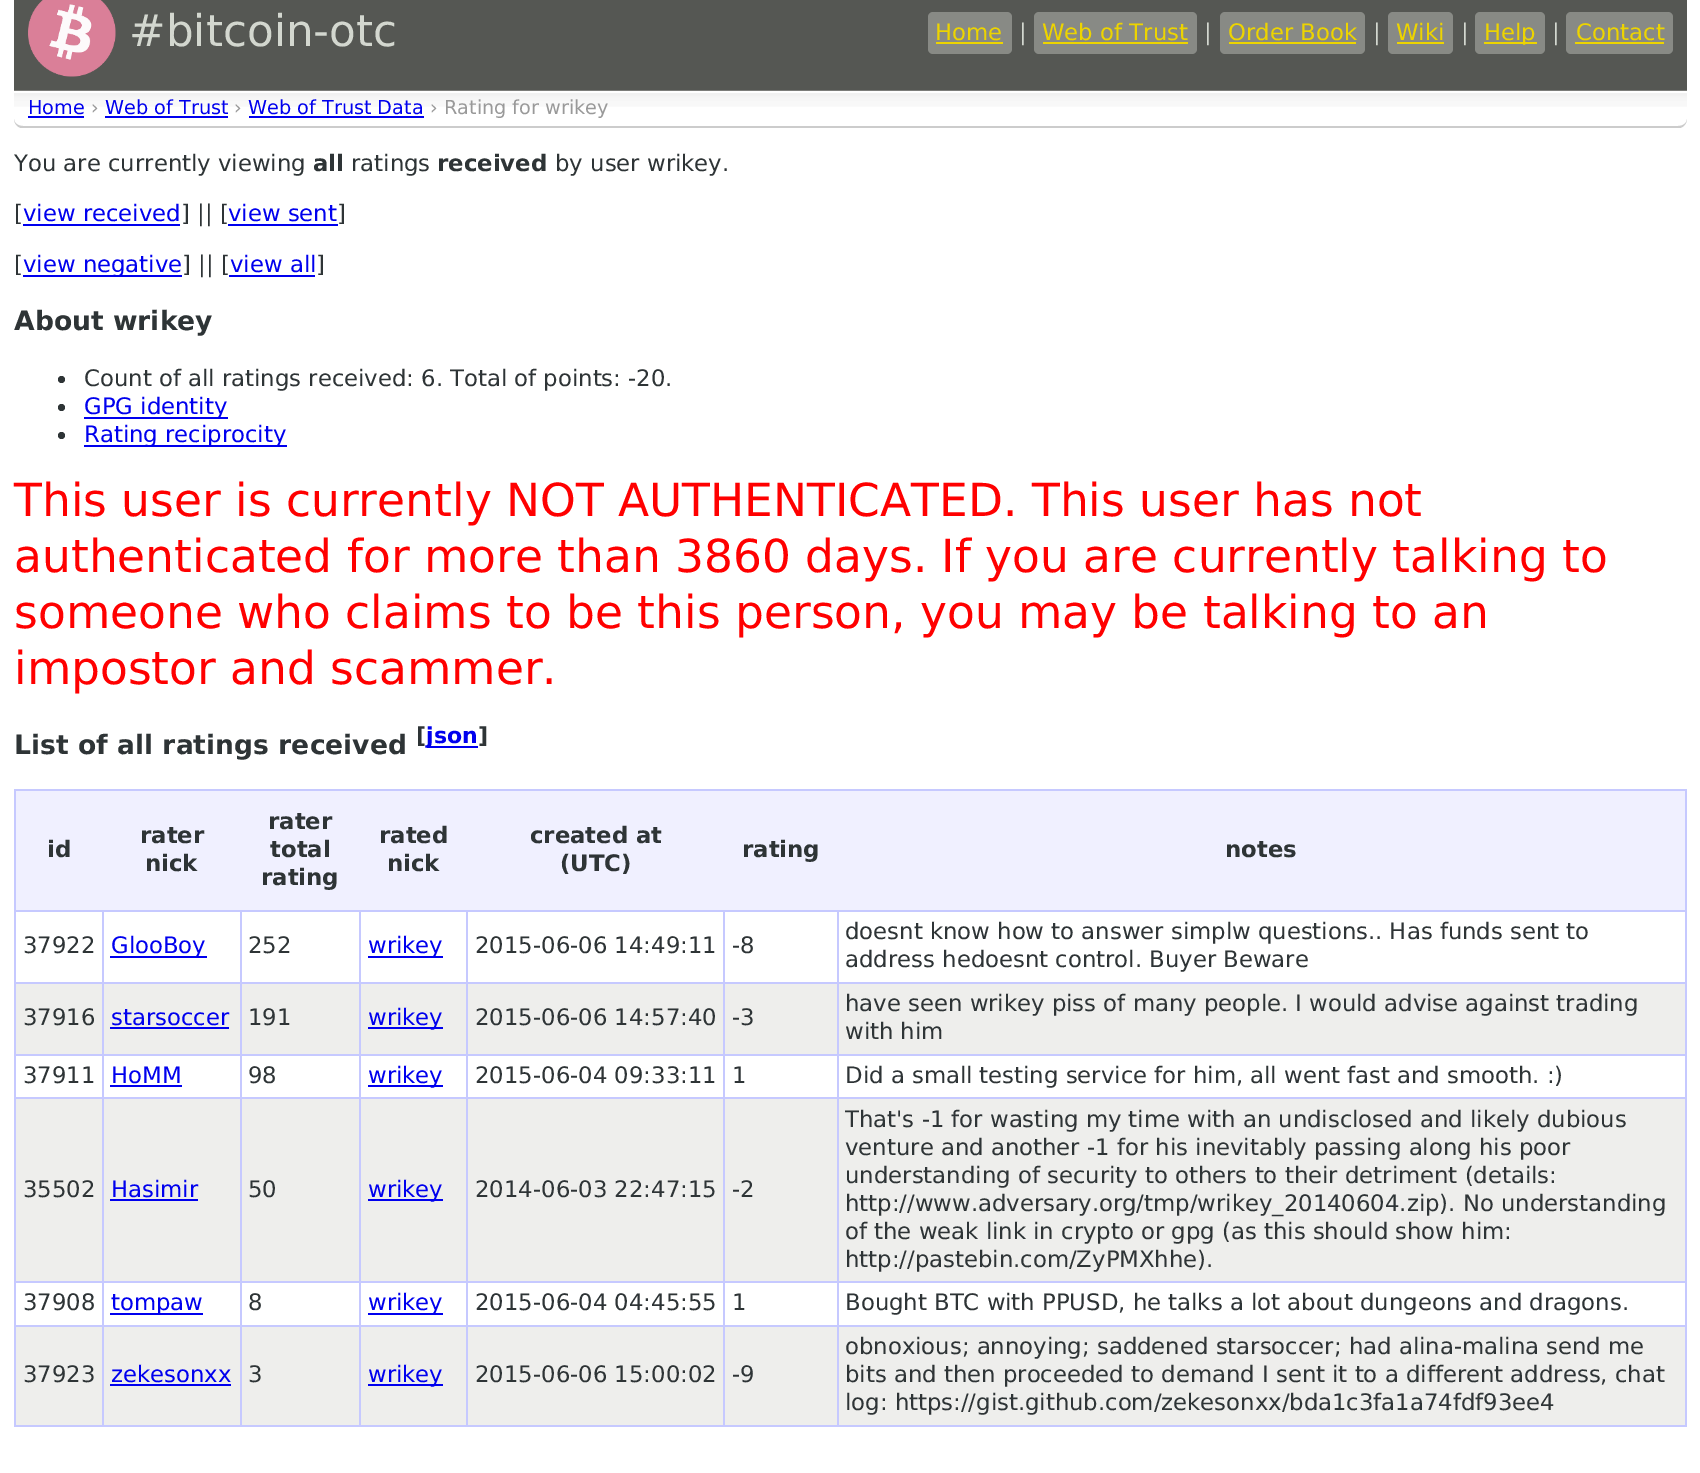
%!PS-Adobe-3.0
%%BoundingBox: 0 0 1700 1473
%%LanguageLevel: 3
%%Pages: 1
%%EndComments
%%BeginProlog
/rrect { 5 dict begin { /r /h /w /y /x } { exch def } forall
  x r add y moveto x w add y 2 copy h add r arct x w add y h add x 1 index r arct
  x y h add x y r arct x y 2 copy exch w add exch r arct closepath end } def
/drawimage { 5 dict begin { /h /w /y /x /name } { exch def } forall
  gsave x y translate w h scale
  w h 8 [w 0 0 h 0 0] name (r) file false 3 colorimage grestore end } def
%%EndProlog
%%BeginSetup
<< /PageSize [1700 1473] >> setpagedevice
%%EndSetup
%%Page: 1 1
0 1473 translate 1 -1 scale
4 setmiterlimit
1 setgray
0 0 1700 1473 rectfill
0.333 0.341 0.325 setrgbcolor
14 0 1673 91 rectfill
(images/1.raw) 28 0 88 77 drawimage
0.533 0.541 0.522 setrgbcolor
928 12 84 42 5 rrect fill
0.929 0.831 0 setrgbcolor
936 42 67 2 rectfill
0.533 0.541 0.522 setrgbcolor
1034 12 163 42 5 rrect fill
0.929 0.831 0 setrgbcolor
1043 42 145 2 rectfill
0.533 0.541 0.522 setrgbcolor
1220 12 145 42 5 rrect fill
0.929 0.831 0 setrgbcolor
1229 42 127 2 rectfill
0.533 0.541 0.522 setrgbcolor
1388 12 65 42 5 rrect fill
0.929 0.831 0 setrgbcolor
1397 42 47 2 rectfill
0.533 0.541 0.522 setrgbcolor
1475 12 70 42 5 rrect fill
0.929 0.831 0 setrgbcolor
1484 42 53 2 rectfill
0.533 0.541 0.522 setrgbcolor
1566 12 107 42 5 rrect fill
0.929 0.831 0 setrgbcolor
1575 42 89 2 rectfill
(images/2.raw) 14 90 1673 17 drawimage
1 setgray
14 91 1673 2 rectfill
0.8 setgray
newpath 21 128 moveto 17 127 14 123 14 119 curveto 14 123 18 126 23 126 curveto 1678 126 lineto 1683 126 1687 123 1687 119 curveto 1687 123 1684 127 1680 128 curveto closepath fill
0 0 0.933 setrgbcolor
28 116 56 2 rectfill
105 116 123 2 rectfill
249 116 175 2 rectfill
23 224 157 2 rectfill
228 224 110 2 rectfill
23 275 159 2 rectfill
229 275 86 2 rectfill
0.18 0.204 0.212 setrgbcolor
newpath 61.5 379.5 3.5 0 360 arc closepath fill
newpath 61.5 407.5 3.5 0 360 arc closepath fill
0 0 0.933 setrgbcolor
84 417 144 2 rectfill
0.18 0.204 0.212 setrgbcolor
newpath 61.5 435.5 3.5 0 360 arc closepath fill
0 0 0.933 setrgbcolor
84 445 203 2 rectfill
427 746 51 2 rectfill
0.776 0.788 1 setrgbcolor
14 789 1673 2 rectfill
1685 789 2 637 rectfill
14 1425 1673 2 rectfill
14 789 2 637 rectfill
0.941 0.941 1 setrgbcolor
16 791 1669 119 rectfill
0.776 0.788 1 setrgbcolor
837 910 850 2 rectfill
837 982 850 2 rectfill
0.933 0.933 0.925 setrgbcolor
16 984 1669 70 rectfill
0.776 0.788 1 setrgbcolor
837 1054 850 2 rectfill
837 1097 850 2 rectfill
0.933 0.933 0.925 setrgbcolor
16 1099 1669 182 rectfill
0.776 0.788 1 setrgbcolor
837 1281 850 2 rectfill
837 1325 850 2 rectfill
0.933 0.933 0.925 setrgbcolor
16 1327 1669 98 rectfill
0.776 0.788 1 setrgbcolor
837 1325 2 101 rectfill
723 1325 115 2 rectfill
837 1281 2 46 rectfill
723 1281 115 2 rectfill
837 1097 2 186 rectfill
723 1097 115 2 rectfill
837 1054 2 45 rectfill
723 1054 115 2 rectfill
837 982 2 73 rectfill
723 982 115 2 rectfill
837 910 2 74 rectfill
723 910 115 2 rectfill
723 1325 2 101 rectfill
466 1325 259 2 rectfill
723 1281 2 46 rectfill
466 1281 259 2 rectfill
723 1097 2 186 rectfill
466 1097 259 2 rectfill
723 1054 2 45 rectfill
466 1054 259 2 rectfill
723 982 2 73 rectfill
466 982 259 2 rectfill
723 910 2 74 rectfill
466 910 259 2 rectfill
466 1325 2 101 rectfill
359 1325 108 2 rectfill
466 1281 2 46 rectfill
359 1281 108 2 rectfill
466 1097 2 186 rectfill
359 1097 108 2 rectfill
466 1054 2 45 rectfill
359 1054 108 2 rectfill
466 982 2 73 rectfill
359 982 108 2 rectfill
466 910 2 74 rectfill
359 910 108 2 rectfill
359 1325 2 101 rectfill
240 1325 121 2 rectfill
359 1281 2 46 rectfill
240 1281 121 2 rectfill
359 1097 2 186 rectfill
240 1097 121 2 rectfill
359 1054 2 45 rectfill
240 1054 121 2 rectfill
359 982 2 73 rectfill
240 982 121 2 rectfill
359 910 2 74 rectfill
240 910 121 2 rectfill
240 1325 2 101 rectfill
102 1325 140 2 rectfill
240 1281 2 46 rectfill
102 1281 140 2 rectfill
240 1097 2 186 rectfill
102 1097 140 2 rectfill
240 1054 2 45 rectfill
102 1054 140 2 rectfill
240 982 2 73 rectfill
102 982 140 2 rectfill
240 910 2 74 rectfill
102 910 140 2 rectfill
102 1325 2 101 rectfill
14 1325 89 2 rectfill
102 1281 2 46 rectfill
14 1281 89 2 rectfill
102 1097 2 186 rectfill
14 1097 89 2 rectfill
102 1054 2 45 rectfill
14 1054 89 2 rectfill
102 982 2 73 rectfill
14 982 89 2 rectfill
102 910 2 74 rectfill
14 910 89 2 rectfill
0 0 0.933 setrgbcolor
110 956 97 2 rectfill
368 956 75 2 rectfill
110 1027 119 2 rectfill
368 1027 75 2 rectfill
110 1085 72 2 rectfill
368 1085 75 2 rectfill
110 1199 88 2 rectfill
368 1199 75 2 rectfill
110 1313 93 2 rectfill
368 1313 75 2 rectfill
110 1384 121 2 rectfill
368 1384 75 2 rectfill
/DejaVuSans-Regular [43.75 0 0 -43.75 0 0] selectfont
0.827 0.843 0.812 setrgbcolor
129 46 moveto (#bitcoin-otc) show
/DejaVuSans-Regular [22.75 0 0 -22.75 0 0] selectfont
0.929 0.831 0 setrgbcolor
935 40 moveto (Home) show
0.827 0.843 0.812 setrgbcolor
1019 40 moveto (|) show
0.929 0.831 0 setrgbcolor
1042 40 moveto (Web of Trust) show
0.827 0.843 0.812 setrgbcolor
1204 40 moveto (|) show
0.929 0.831 0 setrgbcolor
1228 40 moveto (Order Book) show
0.827 0.843 0.812 setrgbcolor
1373 40 moveto (|) show
0.929 0.831 0 setrgbcolor
1396 40 moveto (Wiki) show
0.827 0.843 0.812 setrgbcolor
1461 40 moveto (|) show
0.929 0.831 0 setrgbcolor
1484 40 moveto (Help) show
0.827 0.843 0.812 setrgbcolor
1552 40 moveto (|) show
0.929 0.831 0 setrgbcolor
1576 40 moveto (Contact) show
/DejaVuSans-Regular [19.25 0 0 -19.25 0 0] selectfont
0 0 0.933 setrgbcolor
28 114 moveto (Home) show
0.6 setgray
91 114 moveto (›) show
0 0 0.933 setrgbcolor
105 114 moveto (Web of Trust) show
0.6 setgray
234 114 moveto (›) show
0 0 0.933 setrgbcolor
248 114 moveto (Web of Trust Data) show
0.6 setgray
430 114 moveto (› Rating for wrikey) show
/DejaVuSans-Regular [22.75 0 0 -22.75 0 0] selectfont
0.18 0.204 0.212 setrgbcolor
14 171 moveto (You are currently viewing) show
/DejaVuSans-Bold [22.75 0 0 -22.75 0 0] selectfont
313 171 moveto (all) show
/DejaVuSans-Regular [22.75 0 0 -22.75 0 0] selectfont
351 171 moveto (ratings) show
/DejaVuSans-Bold [22.75 0 0 -22.75 0 0] selectfont
437 171 moveto (received) show
/DejaVuSans-Regular [22.75 0 0 -22.75 0 0] selectfont
555 171 moveto (by user wrikey.) show
14 221 moveto ([) show
0 0 0.933 setrgbcolor
23 221 moveto (view received) show
0.18 0.204 0.212 setrgbcolor
181 221 moveto (] || [) show
0 0 0.933 setrgbcolor
228 221 moveto (view sent) show
0.18 0.204 0.212 setrgbcolor
337 221 moveto (]) show
14 272 moveto ([) show
0 0 0.933 setrgbcolor
23 272 moveto (view negative) show
0.18 0.204 0.212 setrgbcolor
182 272 moveto (] || [) show
0 0 0.933 setrgbcolor
230 272 moveto (view all) show
0.18 0.204 0.212 setrgbcolor
316 272 moveto (]) show
/DejaVuSans-Bold [26.6 0 0 -26.6 0 0] selectfont
14 330 moveto (About wrikey) show
/DejaVuSans-Regular [22.75 0 0 -22.75 0 0] selectfont
84 386 moveto (Count of all ratings received: 6. Total of points: -20.) show
0 0 0.933 setrgbcolor
84 414 moveto (GPG identity) show
84 442 moveto (Rating reciprocity) show
/DejaVuSans-Regular [45.5 0 0 -45.5 0 0] selectfont
1 0 0 setrgbcolor
14 516 moveto (This user is currently NOT AUTHENTICATED. This user has not) show
14 572 moveto (authenticated for more than 3860 days. If you are currently talking to) show
14 628 moveto (someone who claims to be this person, you may be talking to an) show
14 684 moveto (impostor and scammer.) show
/DejaVuSans-Bold [26.6 0 0 -26.6 0 0] selectfont
0.18 0.204 0.212 setrgbcolor
14 754 moveto (List of all ratings received) show
/DejaVuSans-Bold [22 0 0 -22 0 0] selectfont
416 743 moveto ([) show
0 0 0.933 setrgbcolor
426 743 moveto (json) show
0.18 0.204 0.212 setrgbcolor
478 743 moveto (]) show
/DejaVuSans-Bold [22.75 0 0 -22.75 0 0] selectfont
47 857 moveto (id) show
140 843 moveto (rater) show
145 871 moveto (nick) show
268 829 moveto (rater) show
270 857 moveto (total) show
261 885 moveto (rating) show
379 843 moveto (rated) show
387 871 moveto (nick) show
530 843 moveto (created at) show
560 871 moveto (\(UTC\)) show
742 857 moveto (rating) show
1225 857 moveto (notes) show
/DejaVuSans-Regular [22.75 0 0 -22.75 0 0] selectfont
23 953 moveto (37922) show
0 0 0.933 setrgbcolor
111 953 moveto (GlooBoy) show
0.18 0.204 0.212 setrgbcolor
248 953 moveto (252) show
0 0 0.933 setrgbcolor
368 953 moveto (wrikey) show
0.18 0.204 0.212 setrgbcolor
475 953 moveto (2015-06-06 14:49:11) show
732 953 moveto (-8) show
845 939 moveto (doesnt know how to answer simplw questions.. Has funds sent to) show
845 967 moveto (address hedoesnt control. Buyer Beware) show
23 1025 moveto (37916) show
0 0 0.933 setrgbcolor
111 1025 moveto (starsoccer) show
0.18 0.204 0.212 setrgbcolor
248 1025 moveto (191) show
0 0 0.933 setrgbcolor
368 1025 moveto (wrikey) show
0.18 0.204 0.212 setrgbcolor
475 1025 moveto (2015-06-06 14:57:40) show
732 1025 moveto (-3) show
845 1011 moveto (have seen wrikey piss of many people. I would advise against trading) show
845 1039 moveto (with him) show
23 1083 moveto (37911) show
0 0 0.933 setrgbcolor
111 1083 moveto (HoMM) show
0.18 0.204 0.212 setrgbcolor
248 1083 moveto (98) show
0 0 0.933 setrgbcolor
368 1083 moveto (wrikey) show
0.18 0.204 0.212 setrgbcolor
475 1083 moveto (2015-06-04 09:33:11) show
732 1083 moveto (1) show
845 1083 moveto (Did a small testing service for him, all went fast and smooth. :\)) show
23 1197 moveto (35502) show
0 0 0.933 setrgbcolor
111 1197 moveto (Hasimir) show
0.18 0.204 0.212 setrgbcolor
248 1197 moveto (50) show
0 0 0.933 setrgbcolor
368 1197 moveto (wrikey) show
0.18 0.204 0.212 setrgbcolor
475 1197 moveto (2014-06-03 22:47:15) show
732 1197 moveto (-2) show
845 1127 moveto (That's -1 for wasting my time with an undisclosed and likely dubious) show
845 1155 moveto (venture and another -1 for his inevitably passing along his poor) show
845 1183 moveto (understanding of security to others to their detriment \(details:) show
845 1211 moveto (http://www.adversary.org/tmp/wrikey_20140604.zip\). No understanding) show
845 1239 moveto (of the weak link in crypto or gpg \(as this should show him:) show
845 1267 moveto (http://pastebin.com/ZyPMXhhe\).) show
23 1310 moveto (37908) show
0 0 0.933 setrgbcolor
111 1310 moveto (tompaw) show
0.18 0.204 0.212 setrgbcolor
248 1310 moveto (8) show
0 0 0.933 setrgbcolor
368 1310 moveto (wrikey) show
0.18 0.204 0.212 setrgbcolor
475 1310 moveto (2015-06-04 04:45:55) show
732 1310 moveto (1) show
845 1310 moveto (Bought BTC with PPUSD, he talks a lot about dungeons and dragons.) show
23 1382 moveto (37923) show
0 0 0.933 setrgbcolor
111 1382 moveto (zekesonxx) show
0.18 0.204 0.212 setrgbcolor
248 1382 moveto (3) show
0 0 0.933 setrgbcolor
368 1382 moveto (wrikey) show
0.18 0.204 0.212 setrgbcolor
475 1382 moveto (2015-06-06 15:00:02) show
732 1382 moveto (-9) show
845 1354 moveto (obnoxious; annoying; saddened starsoccer; had alina-malina send me) show
845 1382 moveto (bits and then proceeded to demand I sent it to a different address, chat) show
845 1410 moveto (log: https://gist.github.com/zekesonxx/bda1c3fa1a74fdf93ee4) show
showpage
%%EOF
